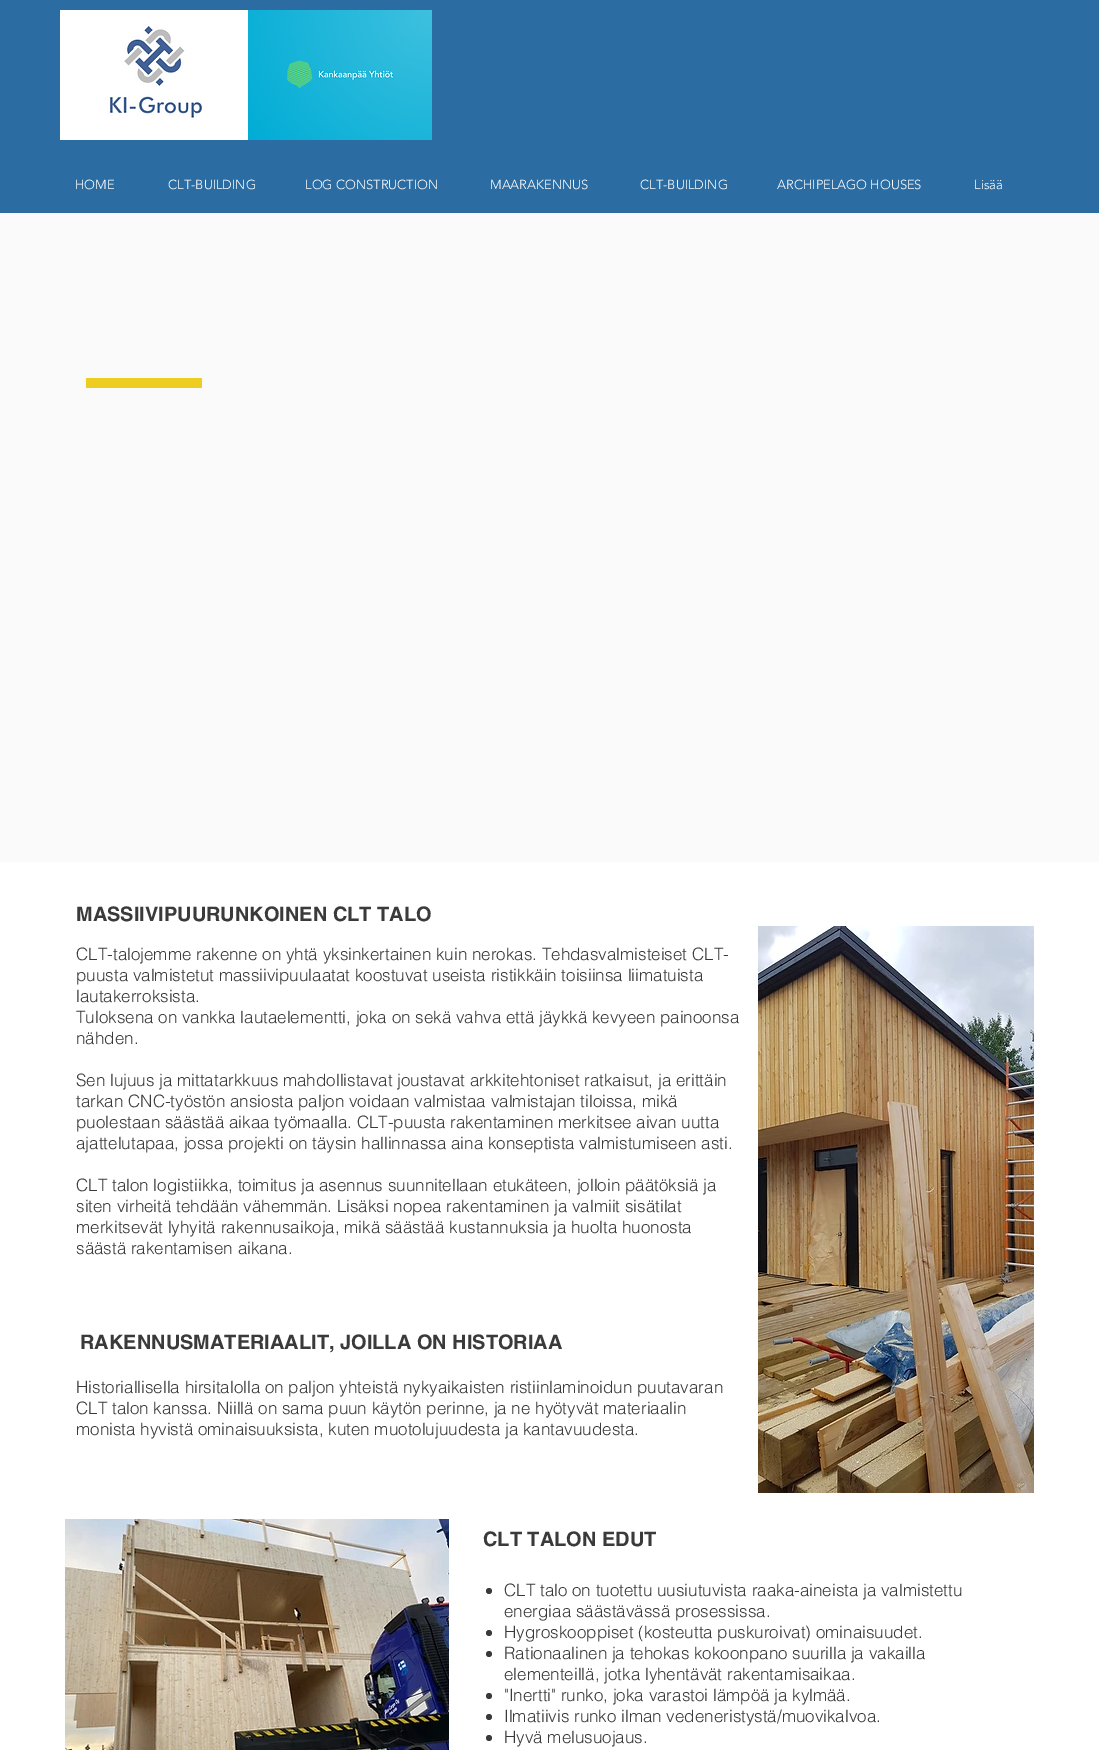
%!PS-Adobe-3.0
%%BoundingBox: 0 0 1099 1750
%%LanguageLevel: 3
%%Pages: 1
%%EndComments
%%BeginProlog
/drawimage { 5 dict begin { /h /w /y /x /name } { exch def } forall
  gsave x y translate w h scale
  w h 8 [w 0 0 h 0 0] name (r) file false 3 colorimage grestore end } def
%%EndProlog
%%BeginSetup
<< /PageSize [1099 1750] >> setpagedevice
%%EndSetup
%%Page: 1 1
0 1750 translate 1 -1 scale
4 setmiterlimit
1 setgray
0 0 1099 1750 rectfill
0.169 0.424 0.639 setrgbcolor
0 0 1099 213 rectfill
(images/1.raw) 60 10 188 130 drawimage
(images/2.raw) 248 10 184 130 drawimage
0.98 setgray
0 213 1099 649 rectfill
0.929 0.804 0.122 setrgbcolor
86 378 116 10 rectfill
(images/3.raw) 758 926 276 567 drawimage
(images/4.raw) 65 1519 384 231 drawimage
0.231 0.227 0.227 setrgbcolor
newpath 489 1591 3 0 360 arc closepath fill
newpath 489 1633 3 0 360 arc closepath fill
newpath 489 1654 3 0 360 arc closepath fill
newpath 489 1696 3 0 360 arc closepath fill
newpath 489 1717 3 0 360 arc closepath fill
newpath 489 1738 3 0 360 arc closepath fill
/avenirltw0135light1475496-Light [13 0 0 -13 0 0] selectfont
1 setgray
75 189 moveto (HOME) show
168 189 moveto (CLT-BUILDING) show
305 189 moveto (LOG CONSTRUCTION) show
490 189 moveto (MAARAKENNUS) show
640 189 moveto (CLT-BUILDING) show
777 189 moveto (ARCHIPELAGO HOUSES) show
974 189 moveto (Lisää) show
/helvetica-Bold [20 0 0 -20 0 0] selectfont
0.231 0.227 0.227 setrgbcolor
76 921 moveto (MASSIIVIPUURUNKOINEN CLT TALO) show
/helvetica-Light [17 0 0 -17 0 0] selectfont
76 960 moveto (CLT-talojemme rakenne on yhtä yksinkertainen kuin nerokas. Tehdasvalmisteiset CLT-) show
76 981 moveto (puusta valmistetut massiivipuulaatat koostuvat useista ristikkäin toisiinsa liimatuista) show
76 1002 moveto (lautakerroksista.) show
76 1023 moveto (Tuloksena on vankka lautaelementti, joka on sekä vahva että jäykkä kevyeen painoonsa) show
76 1044 moveto (nähden.) show
76 1086 moveto (Sen lujuus ja mittatarkkuus mahdollistavat joustavat arkkitehtoniset ratkaisut, ja erittäin) show
76 1107 moveto (tarkan CNC-työstön ansiosta paljon voidaan valmistaa valmistajan tiloissa, mikä) show
76 1128 moveto (puolestaan säästää aikaa työmaalla. CLT-puusta rakentaminen merkitsee aivan uutta) show
76 1149 moveto (ajattelutapaa, jossa projekti on täysin hallinnassa aina konseptista valmistumiseen asti.) show
76 1191 moveto (CLT talon logistiikka, toimitus ja asennus suunnitellaan etukäteen, jolloin päätöksiä ja) show
76 1212 moveto (siten virheitä tehdään vähemmän. Lisäksi nopea rakentaminen ja valmiit sisätilat) show
76 1233 moveto (merkitsevät lyhyitä rakennusaikoja, mikä säästää kustannuksia ja huolta huonosta) show
76 1254 moveto (säästä rakentamisen aikana.) show
/helvetica-Bold [20 0 0 -20 0 0] selectfont
80 1349 moveto (RAKENNUSMATERIAALIT, JOILLA ON HISTORIAA) show
/helvetica-Light [17 0 0 -17 0 0] selectfont
76 1393 moveto (Historiallisella hirsitalolla on paljon yhteistä nykyaikaisten ristiinlaminoidun puutavaran) show
76 1414 moveto (CLT talon kanssa. Niillä on sama puun käytön perinne, ja ne hyötyvät materiaalin) show
76 1435 moveto (monista hyvistä ominaisuuksista, kuten muotolujuudesta ja kantavuudesta.) show
/helvetica-Bold [20 0 0 -20 0 0] selectfont
483 1546 moveto (CLT TALON EDUT) show
/helvetica-Light [17 0 0 -17 0 0] selectfont
504 1596 moveto (CLT talo on tuotettu uusiutuvista raaka-aineista ja valmistettu) show
504 1617 moveto (energiaa säästävässä prosessissa.) show
504 1638 moveto (Hygroskooppiset \(kosteutta puskuroivat\) ominaisuudet.) show
504 1659 moveto (Rationaalinen ja tehokas kokoonpano suurilla ja vakailla) show
504 1680 moveto (elementeillä, jotka lyhentävät rakentamisaikaa.) show
504 1701 moveto ("Inertti" runko, joka varastoi lämpöä ja kylmää.) show
504 1722 moveto (Ilmatiivis runko ilman vedeneristystä/muovikalvoa.) show
504 1743 moveto (Hyvä melusuojaus.) show
showpage
%%EOF
